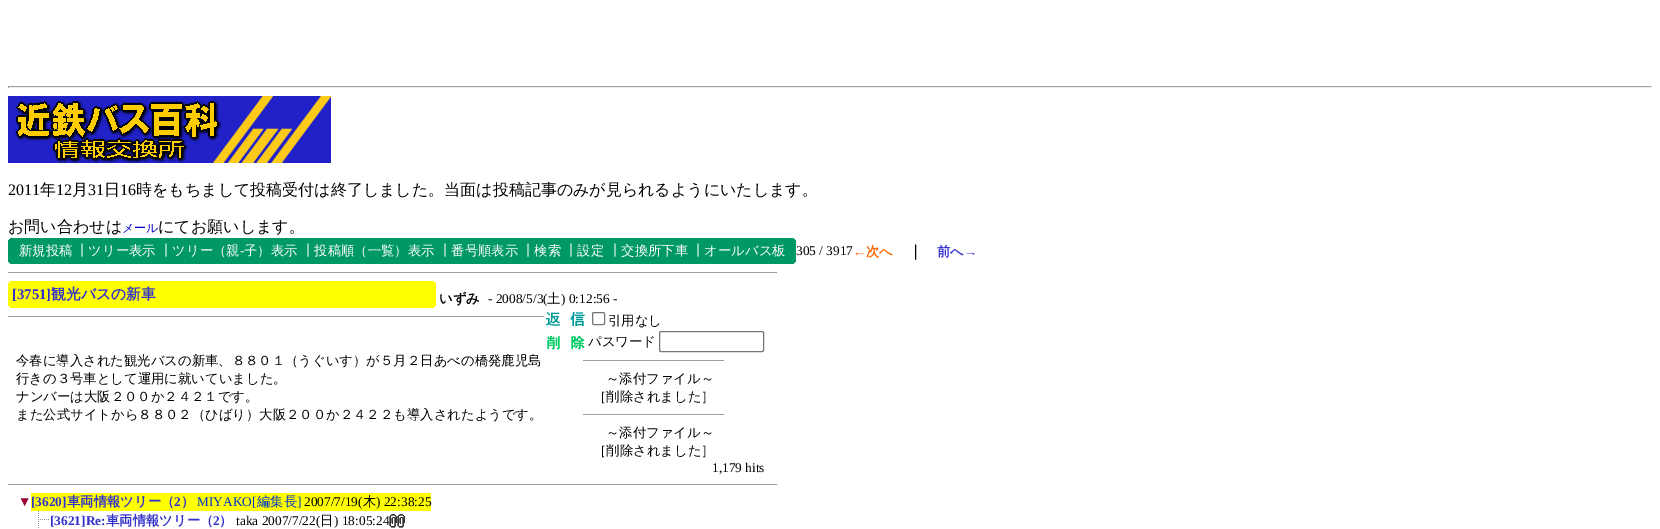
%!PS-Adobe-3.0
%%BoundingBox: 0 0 1660 529
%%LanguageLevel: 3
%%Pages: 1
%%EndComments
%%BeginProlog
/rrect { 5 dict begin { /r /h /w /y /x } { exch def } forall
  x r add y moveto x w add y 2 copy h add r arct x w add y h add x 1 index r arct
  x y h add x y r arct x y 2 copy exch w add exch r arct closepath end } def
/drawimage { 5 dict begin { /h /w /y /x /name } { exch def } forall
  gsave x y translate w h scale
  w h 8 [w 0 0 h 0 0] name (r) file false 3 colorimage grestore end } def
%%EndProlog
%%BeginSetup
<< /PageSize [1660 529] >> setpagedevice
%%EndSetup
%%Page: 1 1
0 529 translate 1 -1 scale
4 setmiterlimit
1 setgray
0 0 1660 529 rectfill
0.624 setgray
8 86 1644 1 rectfill
0.933 setgray
1651 86 1 2 rectfill
8 87 1644 1 rectfill
0.624 setgray
8 86 1 2 rectfill
(images/1.raw) 8 96 323 68 drawimage
0 0.6 0.4 setrgbcolor
8 238 788 26 rectfill
(images/2.raw) 8 238 2 2 drawimage
(images/3.raw) 794 238 2 2 drawimage
(images/4.raw) 8 262 2 2 drawimage
(images/5.raw) 794 262 2 2 drawimage
0.624 setgray
8 272 770 1 rectfill
0.933 setgray
777 272 1 1 rectfill
1 1 0 setrgbcolor
8 281 428 27 rectfill
(images/6.raw) 8 281 2 2 drawimage
(images/7.raw) 434 281 2 2 drawimage
(images/8.raw) 8 306 2 2 drawimage
(images/9.raw) 434 306 2 2 drawimage
0.624 setgray
8 316 537 1 rectfill
0.933 setgray
544 316 1 1 rectfill
(images/10.raw) 546 312 39 14 drawimage
0.463 setgray
592.5 312.5 12 12 1.5 rrect stroke
(images/11.raw) 547 336 38 14 drawimage
659.5 331.5 104 20 1.5 rrect stroke
0.624 setgray
583 360 142 1 rectfill
0.933 setgray
724 360 1 1 rectfill
0.624 setgray
583 414 142 1 rectfill
0.933 setgray
724 414 1 1 rectfill
0.624 setgray
8 484 770 1 rectfill
0.933 setgray
777 484 1 1 rectfill
1 1 0 setrgbcolor
31 493 400 18 rectfill
(images/12.raw) 38 511 11 17 drawimage
(images/13.raw) 389 514 8 14 drawimage
(images/13.raw) 397 514 8 14 drawimage
/LiberationSerif-Regular [16 0 0 -16 0 0] selectfont
0 setgray
8 195 moveto (2011) show
/WenQuanYiZenHei-Medium [16 0 0 -16 0 0] selectfont
40 195 moveto (年) show
/LiberationSerif-Regular [16 0 0 -16 0 0] selectfont
56 195 moveto (12) show
/WenQuanYiZenHei-Medium [16 0 0 -16 0 0] selectfont
72 195 moveto (月) show
/LiberationSerif-Regular [16 0 0 -16 0 0] selectfont
88 195 moveto (31) show
/WenQuanYiZenHei-Medium [16 0 0 -16 0 0] selectfont
104 195 moveto (日) show
/LiberationSerif-Regular [16 0 0 -16 0 0] selectfont
120 195 moveto (16) show
/WenQuanYiZenHei-Medium [16 0 0 -16 0 0] selectfont
136 195 moveto (時をもちまして投稿受付は終了しました。当面は投稿記事のみが見られるようにいたします。) show
8 232 moveto (お問い合わせは) show
/WenQuanYiZenHei-Medium [12 0 0 -12 0 0] selectfont
0 0 0.8 setrgbcolor
122 232 moveto (メール) show
/WenQuanYiZenHei-Medium [16 0 0 -16 0 0] selectfont
0 setgray
158 232 moveto (にてお願いします。) show
/WenQuanYiZenHei-Medium [13.35 0 0 -13.35 0 0] selectfont
1 setgray
19 255 moveto (新規投稿) show
75 255 moveto (┃ツリー表示) show
159 255 moveto (┃ツリー（親) show
/LiberationSerif-Regular [13.35 0 0 -13.35 0 0] selectfont
240 255 moveto (-) show
/WenQuanYiZenHei-Medium [13.35 0 0 -13.35 0 0] selectfont
244 255 moveto (子）表示) show
301 255 moveto (┃投稿順（一覧）表示) show
438 255 moveto (┃番号順表示) show
521 255 moveto (┃検索) show
564 255 moveto (┃設定) show
608 255 moveto (┃交換所下車) show
691 255 moveto (┃オールバス板) show
/LiberationSerif-Regular [13.35 0 0 -13.35 0 0] selectfont
0 setgray
796 255 moveto (305 / 3917) show
/LiberationSerif-Bold [13.35 0 0 -13.35 0 0] selectfont
1 0.4 0 setrgbcolor
853 256 moveto (←) show
/WenQuanYiZenHei-Bold [13.35 0 0 -13.35 0 0] selectfont
866 256 moveto (次へ) show
/WenQuanYiZenHei-Bold [14.75 0 0 -14.75 0 0] selectfont
0 setgray
908 256 moveto (｜) show
/WenQuanYiZenHei-Bold [13.35 0 0 -13.35 0 0] selectfont
0.2 0.2 0.8 setrgbcolor
937 256 moveto (前へ) show
/LiberationSerif-Bold [13.35 0 0 -13.35 0 0] selectfont
964 256 moveto (→) show
/LiberationSerif-Bold [14.75 0 0 -14.75 0 0] selectfont
12 299 moveto ([3751]) show
/WenQuanYiZenHei-Bold [14.75 0 0 -14.75 0 0] selectfont
51 299 moveto (観光バスの新車) show
/WenQuanYiZenHei-Bold [13.35 0 0 -13.35 0 0] selectfont
0 setgray
439 303 moveto (いずみ) show
/LiberationSerif-Regular [13.35 0 0 -13.35 0 0] selectfont
488 303 moveto (- 2008/5/3\() show
/WenQuanYiZenHei-Medium [13.35 0 0 -13.35 0 0] selectfont
547 303 moveto (土) show
/LiberationSerif-Regular [13.35 0 0 -13.35 0 0] selectfont
561 303 moveto (\) 0:12:56 -) show
/WenQuanYiZenHei-Medium [13.35 0 0 -13.35 0 0] selectfont
16 365 moveto (今春に導入された観光バスの新車、８８０１（うぐいす）が５月２日あべの橋発鹿児島) show
16 383 moveto (行きの３号車として運用に就いていました。) show
16 401 moveto (ナンバーは大阪２００か２４２１です。) show
16 419 moveto (また公式サイトから８８０２（ひばり）大阪２００か２４２２も導入されたようです。) show
608 325 moveto (引用なし) show
588 346 moveto (パスワード) show
606 383 moveto (～添付ファイル～) show
593 401 moveto (［削除されました］) show
606 437 moveto (～添付ファイル～) show
593 455 moveto (［削除されました］) show
/LiberationSerif-Regular [13.35 0 0 -13.35 0 0] selectfont
712 472 moveto (1,179 hits) show
0.6 0 0.2 setrgbcolor
18 506 moveto (▼) show
/LiberationSerif-Bold [13.35 0 0 -13.35 0 0] selectfont
0.2 0.2 0.8 setrgbcolor
31 506 moveto ([3620]) show
/WenQuanYiZenHei-Bold [13.35 0 0 -13.35 0 0] selectfont
67 506 moveto (車両情報ツリー（) show
/LiberationSerif-Bold [13.35 0 0 -13.35 0 0] selectfont
174 506 moveto (2) show
/WenQuanYiZenHei-Bold [13.35 0 0 -13.35 0 0] selectfont
181 506 moveto (）) show
/LiberationSerif-Regular [13.35 0 0 -13.35 0 0] selectfont
0 0.2 0.8 setrgbcolor
197 506 moveto (MIYAKO[) show
/WenQuanYiZenHei-Medium [13.35 0 0 -13.35 0 0] selectfont
257 506 moveto (編集長) show
/LiberationSerif-Regular [13.35 0 0 -13.35 0 0] selectfont
297 506 moveto (]) show
0 setgray
304 506 moveto (2007/7/19\() show
/WenQuanYiZenHei-Medium [13.35 0 0 -13.35 0 0] selectfont
363 506 moveto (木) show
/LiberationSerif-Regular [13.35 0 0 -13.35 0 0] selectfont
376 506 moveto (\) 22:38:25) show
/LiberationSerif-Bold [13.35 0 0 -13.35 0 0] selectfont
0.2 0.2 0.8 setrgbcolor
50 525 moveto ([3621]Re:) show
/WenQuanYiZenHei-Bold [13.35 0 0 -13.35 0 0] selectfont
106 525 moveto (車両情報ツリー（) show
/LiberationSerif-Bold [13.35 0 0 -13.35 0 0] selectfont
213 525 moveto (2) show
/WenQuanYiZenHei-Bold [13.35 0 0 -13.35 0 0] selectfont
219 525 moveto (）) show
/LiberationSerif-Regular [13.35 0 0 -13.35 0 0] selectfont
0 setgray
236 525 moveto (taka 2007/7/22\() show
/WenQuanYiZenHei-Medium [13.35 0 0 -13.35 0 0] selectfont
320 525 moveto (日) show
/LiberationSerif-Regular [13.35 0 0 -13.35 0 0] selectfont
334 525 moveto (\) 18:05:24) show
showpage
%%EOF
